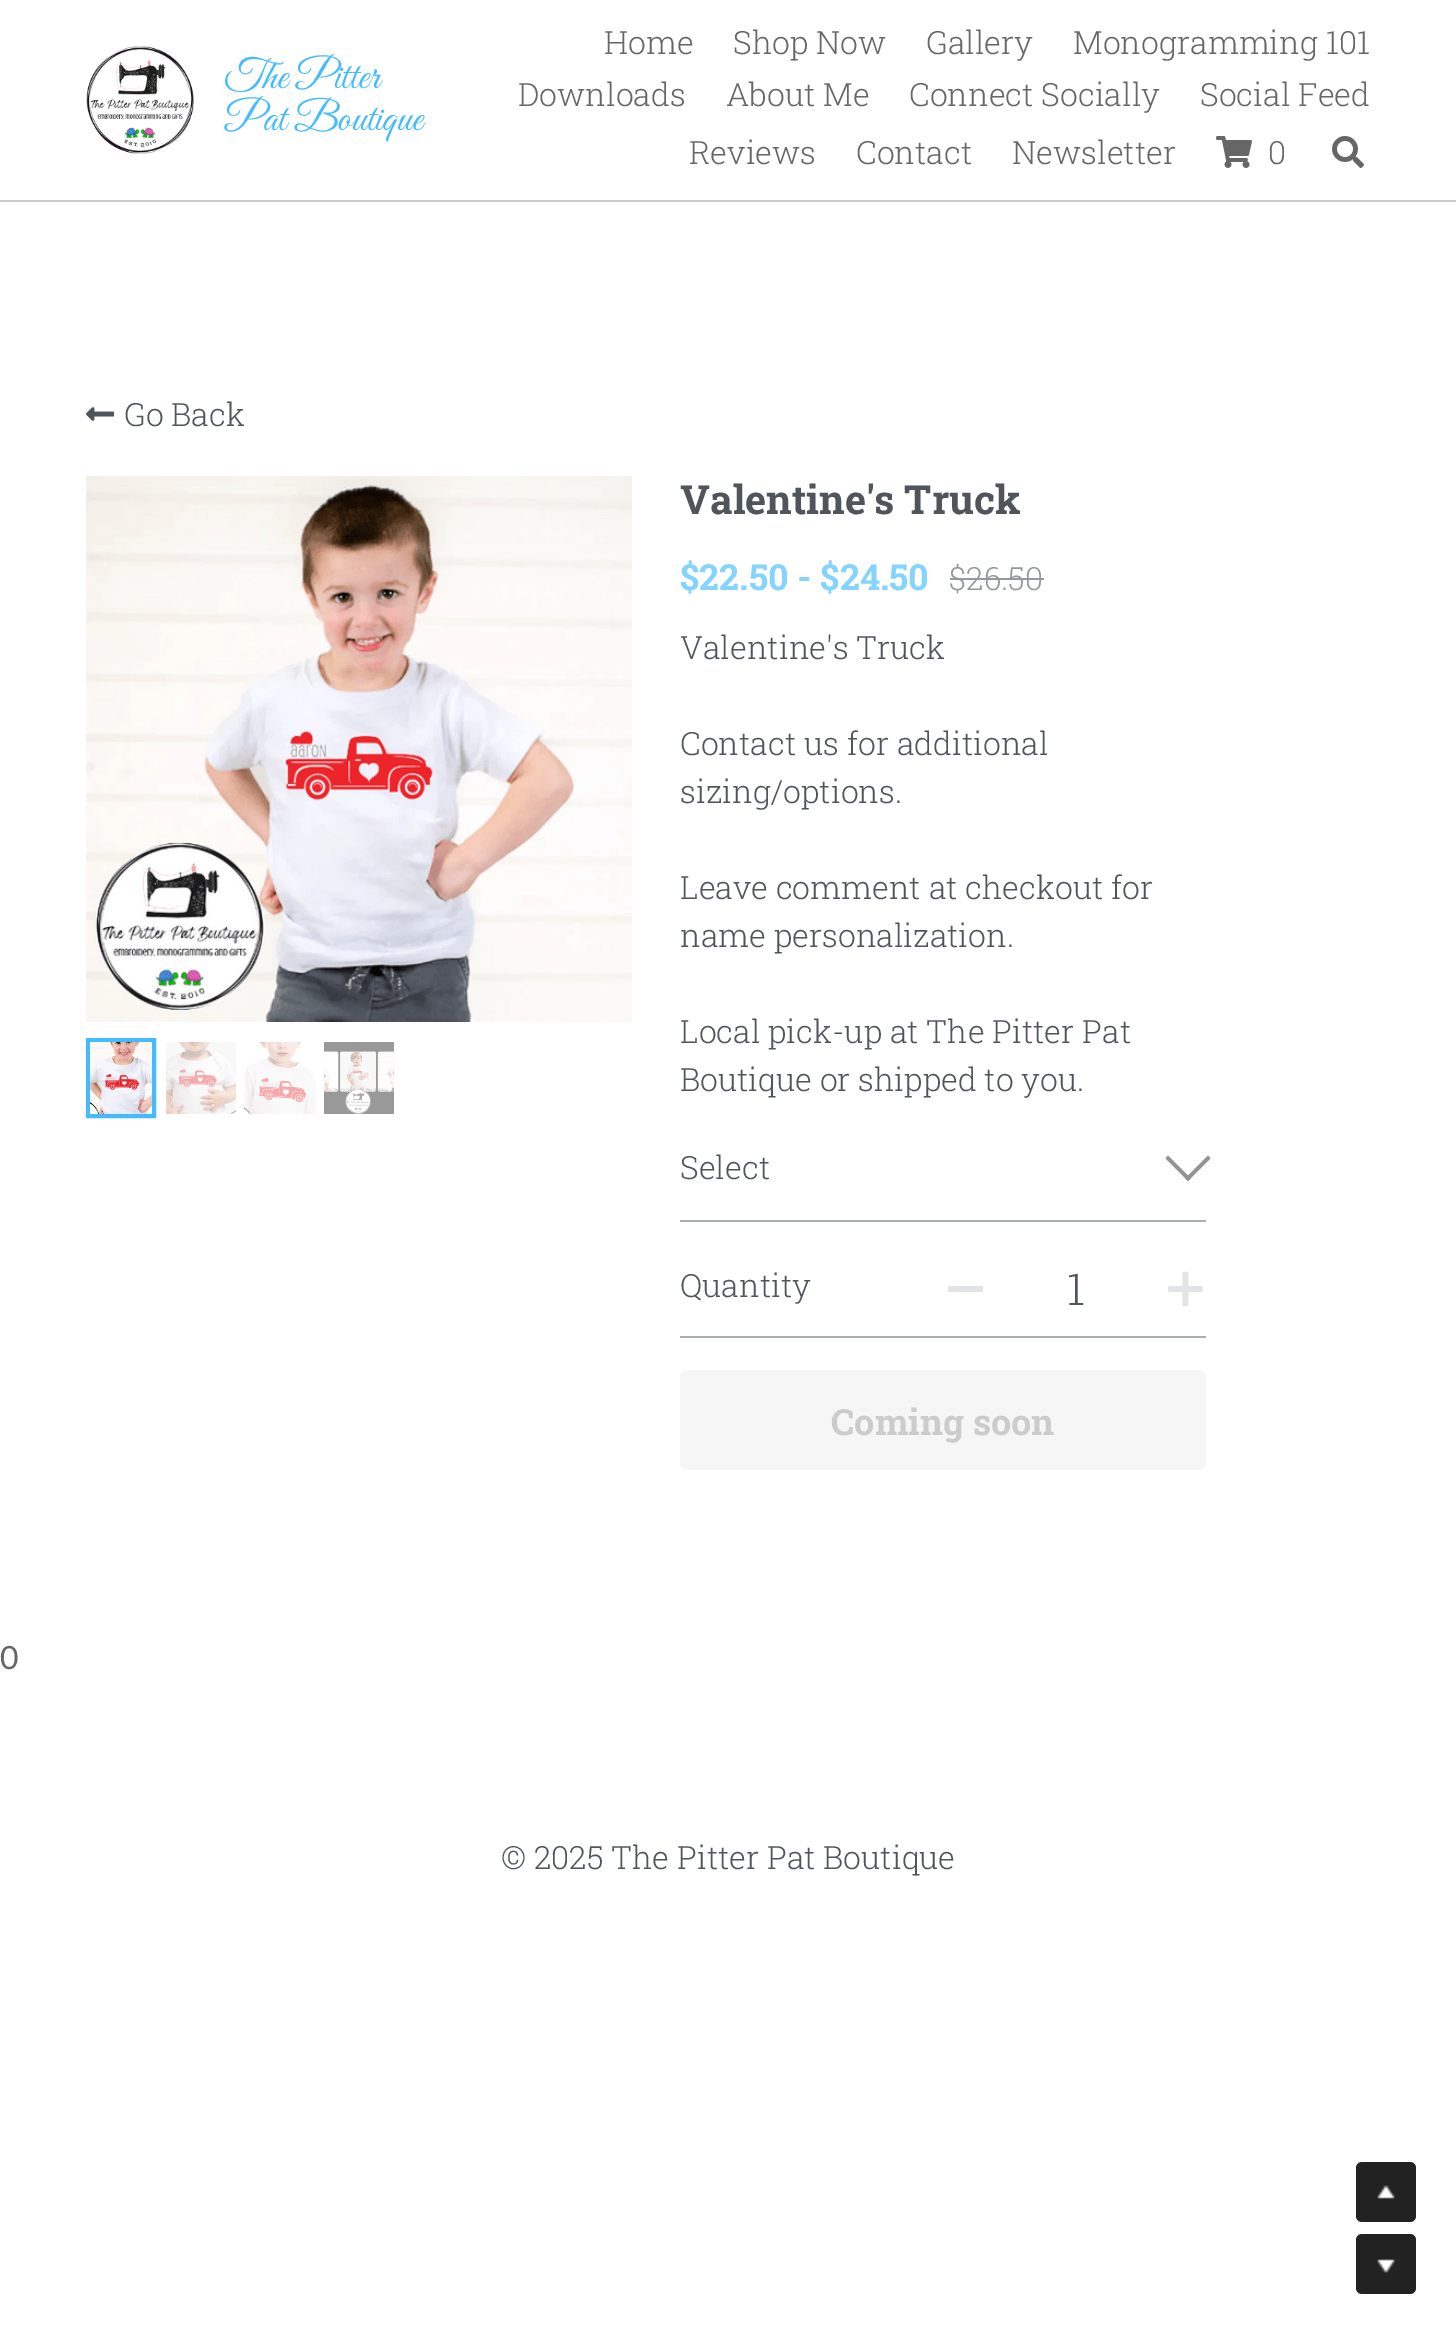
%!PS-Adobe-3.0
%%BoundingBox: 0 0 1456 2334
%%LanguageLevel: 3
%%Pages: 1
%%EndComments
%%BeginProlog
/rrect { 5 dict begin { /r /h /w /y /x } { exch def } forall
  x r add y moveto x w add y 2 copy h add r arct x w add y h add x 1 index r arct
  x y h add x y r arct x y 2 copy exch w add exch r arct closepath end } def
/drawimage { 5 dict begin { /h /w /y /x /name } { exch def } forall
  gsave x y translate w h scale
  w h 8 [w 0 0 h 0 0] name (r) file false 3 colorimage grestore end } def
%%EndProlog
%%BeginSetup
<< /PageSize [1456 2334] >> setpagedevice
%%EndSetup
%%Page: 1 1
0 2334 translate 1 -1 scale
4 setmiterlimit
1 setgray
0 0 1456 2334 rectfill
0.8 setgray
0 200 1456 2 rectfill
(images/1.raw) 86 46 108 108 drawimage
(images/2.raw) 1216 136 36 32 drawimage
(images/3.raw) 1332 136 32 32 drawimage
(images/4.raw) 86 407 29 14 drawimage
(images/5.raw) 86 476 546 546 drawimage
0.267 0.733 1 setrgbcolor
4 setlinewidth
88 1040 66 76 rectstroke
(images/6.raw) 90 1042 62 72 drawimage
(images/7.raw) 166 1042 70 72 drawimage
(images/8.raw) 244 1042 72 72 drawimage
(images/9.raw) 324 1042 70 72 drawimage
0.576 0.596 0.612 setrgbcolor
950 578 94 2 rectfill
0.663 0.682 0.698 setrgbcolor
680 1220 526 2 rectfill
0.569 0.576 0.58 setrgbcolor
newpath 1208 1155.5 moveto 1210.5 1158.5 lineto 1188 1181 lineto 1185 1178.5 lineto closepath fill
newpath 1168 1155.5 moveto 1191 1178.5 lineto 1188 1181 lineto 1165.5 1158.5 lineto closepath fill
1 setgray
newpath 1180 1177 moveto 1188 1185 lineto 1196 1177 lineto stroke
0.663 0.682 0.698 setrgbcolor
680 1336 526 2 rectfill
0.886 0.894 0.906 setrgbcolor
948 1286 35 6 rectfill
(images/10.raw) 1168 1271 35 36 drawimage
0.965 setgray
680 1370 526 100 8 rrect fill
0.133 setgray
1356 2162 60 60 6 rrect fill
(images/11.raw) 1377 2185 18 14 drawimage
1356 2234 60 60 6 rrect fill
(images/12.raw) 1377 2259 18 14 drawimage
/GreatVibes-Regular [42 0 0 -42 0 0] selectfont
0.267 0.733 1 setrgbcolor
224 88 moveto (The Pitter) show
224 130 moveto (Pat Boutique) show
/RobotoSlab-Light [32 0 0 -32 0 0] selectfont
0.4 setgray
604 54 moveto (Home) show
733 54 moveto (Shop Now) show
926 54 moveto (Gallery) show
1073 54 moveto (Monogramming 101) show
518 106 moveto (Downloads) show
726 106 moveto (About Me) show
909 106 moveto (Connect Socially) show
1200 106 moveto (Social Feed) show
689 164 moveto (Reviews) show
856 164 moveto (Contact) show
1012 164 moveto (Newsletter) show
1268 164 moveto (0) show
0.314 0.333 0.361 setrgbcolor
124 426 moveto (Go Back) show
/RobotoSlab-Bold [40 0 0 -40 0 0] selectfont
680 514 moveto (Valentine's Truck) show
/RobotoSlab-Bold [36 0 0 -36 0 0] selectfont
0.522 0.827 1 setrgbcolor
680 590 moveto ($22.50 - $24.50) show
/RobotoSlab-Light [32 0 0 -32 0 0] selectfont
0.576 0.596 0.612 setrgbcolor
949 590 moveto ($26.50) show
0.314 0.333 0.361 setrgbcolor
680 659 moveto (Valentine's Truck) show
680 755 moveto (Contact us for additional) show
680 803 moveto (sizing/options.) show
680 899 moveto (Leave comment at checkout for) show
680 947 moveto (name personalization.) show
680 1043 moveto (Local pick-up at The Pitter Pat) show
680 1091 moveto (Boutique or shipped to you.) show
680 1179 moveto (Select) show
680 1297 moveto (Quantity) show
/RobotoSlab-Light [44 0 0 -44 0 0] selectfont
1067 1305 moveto (1) show
/RobotoSlab-Bold [36 0 0 -36 0 0] selectfont
0.8 setgray
831 1435 moveto (Coming soon) show
/Lato-Regular [32 0 0 -32 0 0] selectfont
0.4 setgray
0 1669 moveto (0) show
/RobotoSlab-Light [32 0 0 -32 0 0] selectfont
0.314 0.333 0.361 setrgbcolor
501 1869 moveto (© 2025 The Pitter Pat Boutique) show
showpage
%%EOF
